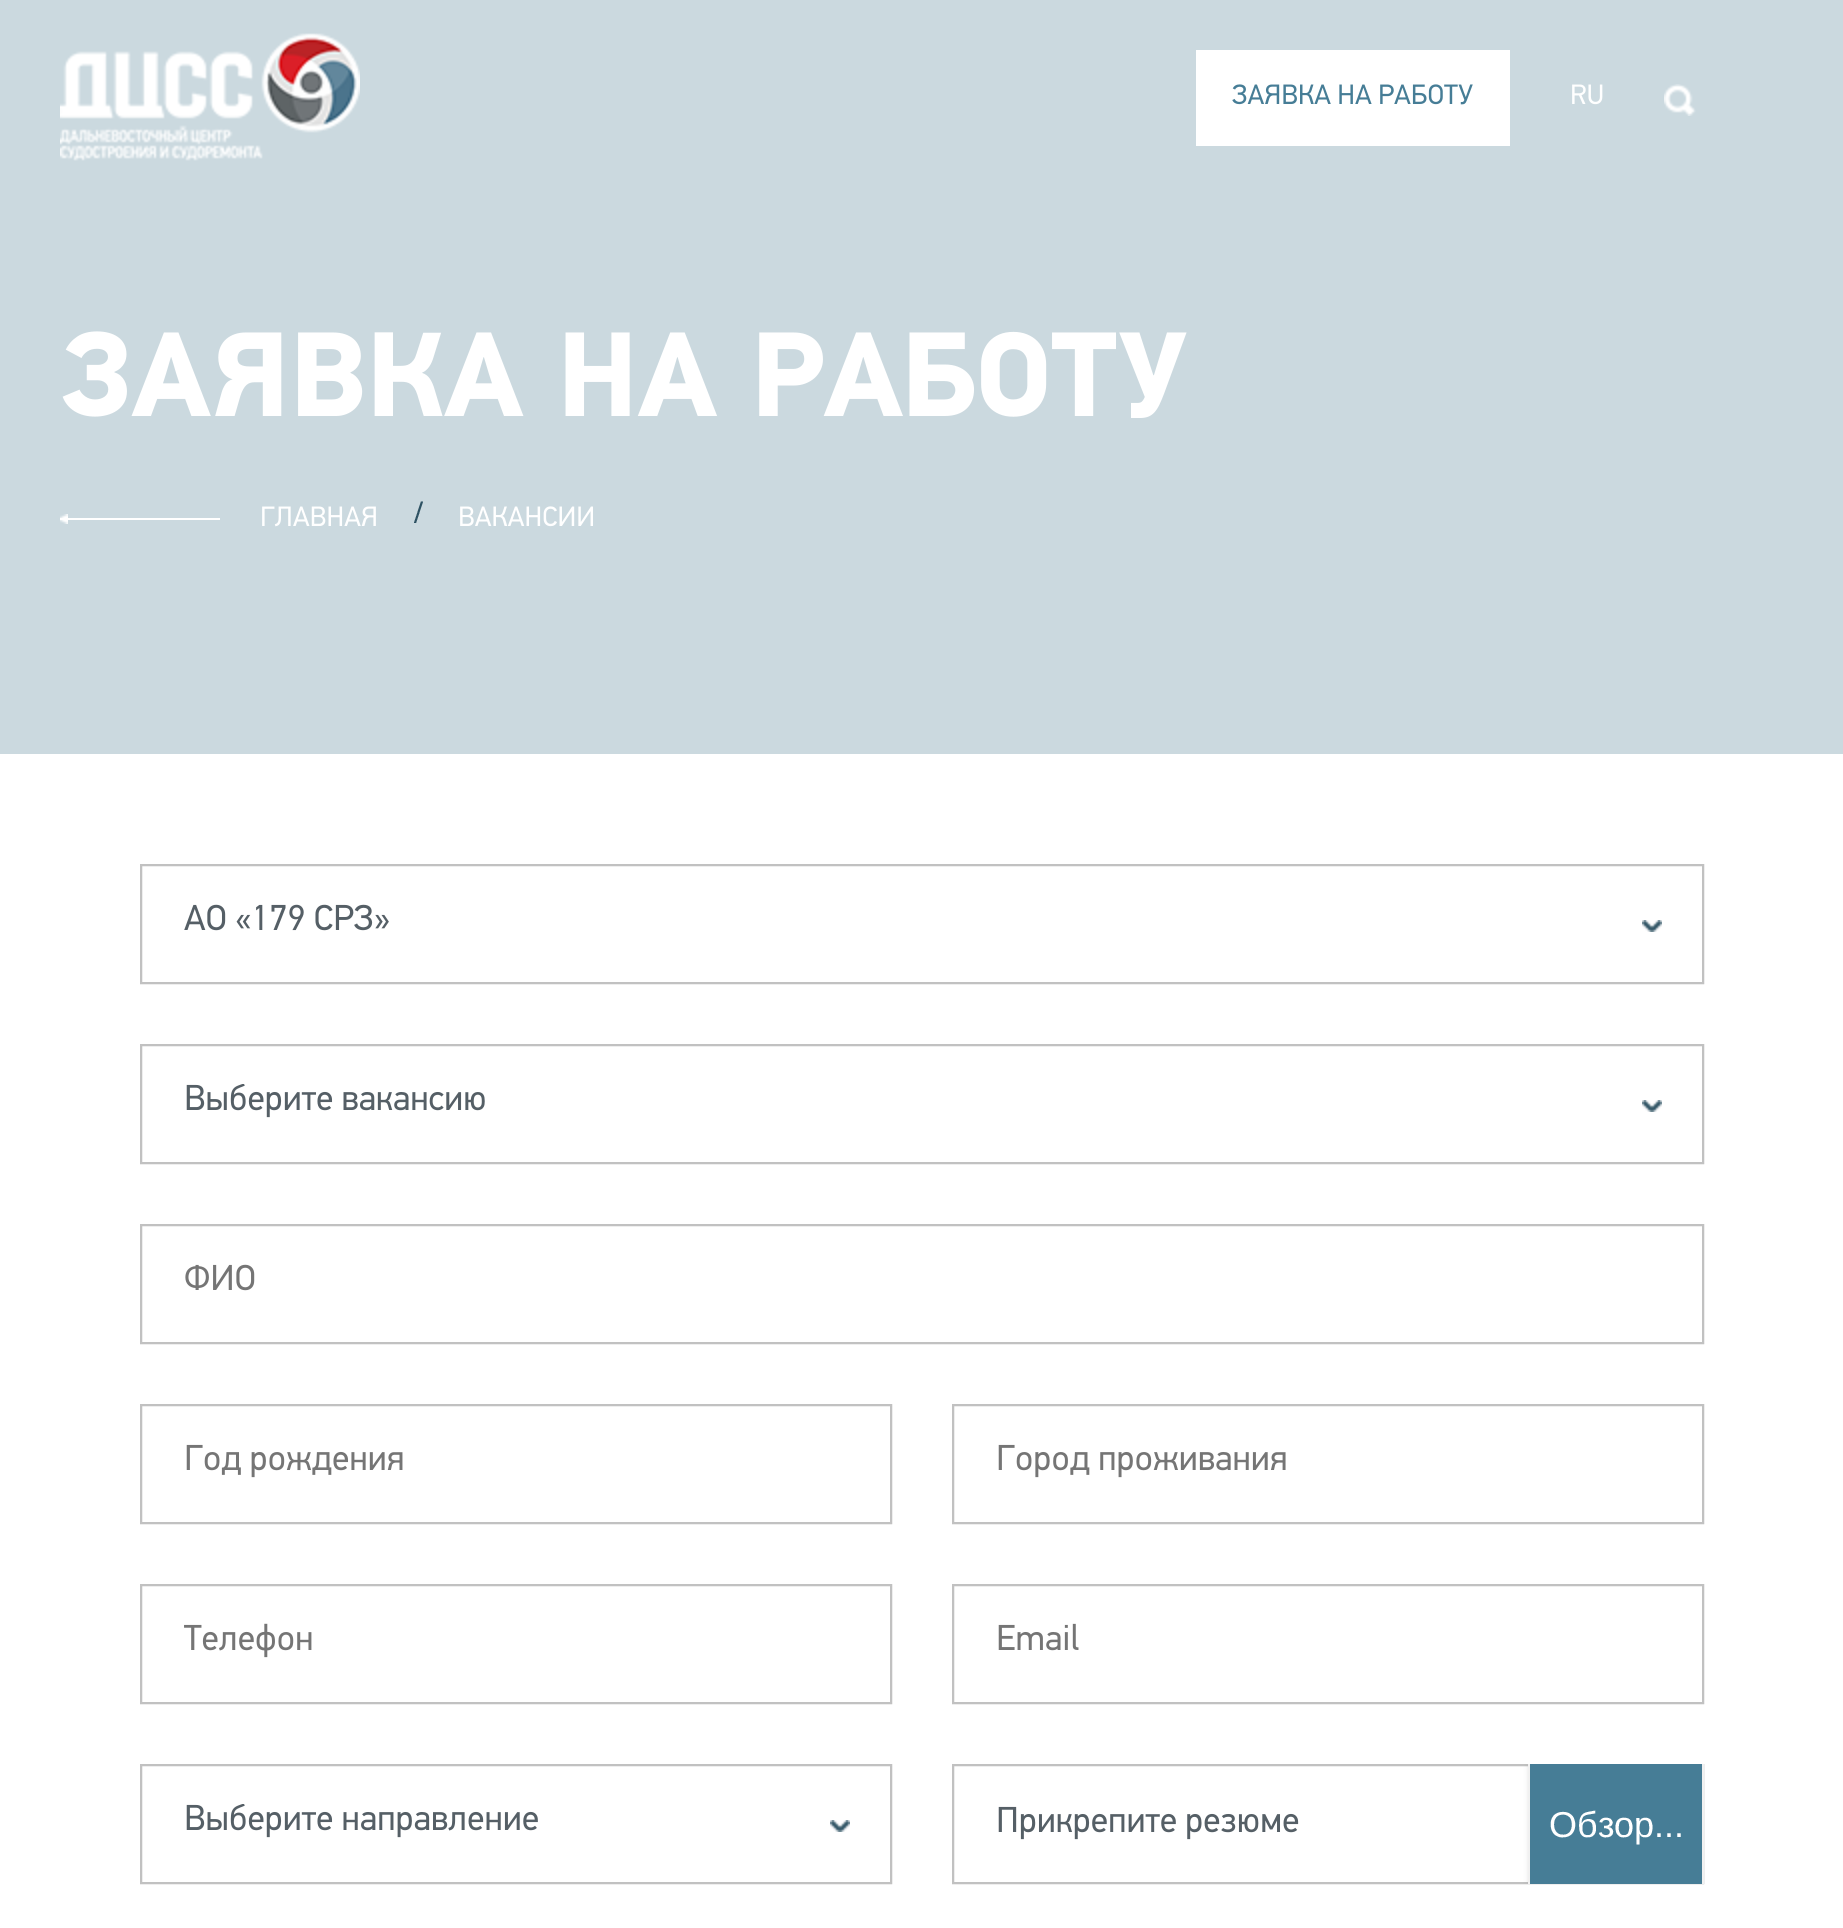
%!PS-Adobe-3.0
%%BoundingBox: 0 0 1843 1928
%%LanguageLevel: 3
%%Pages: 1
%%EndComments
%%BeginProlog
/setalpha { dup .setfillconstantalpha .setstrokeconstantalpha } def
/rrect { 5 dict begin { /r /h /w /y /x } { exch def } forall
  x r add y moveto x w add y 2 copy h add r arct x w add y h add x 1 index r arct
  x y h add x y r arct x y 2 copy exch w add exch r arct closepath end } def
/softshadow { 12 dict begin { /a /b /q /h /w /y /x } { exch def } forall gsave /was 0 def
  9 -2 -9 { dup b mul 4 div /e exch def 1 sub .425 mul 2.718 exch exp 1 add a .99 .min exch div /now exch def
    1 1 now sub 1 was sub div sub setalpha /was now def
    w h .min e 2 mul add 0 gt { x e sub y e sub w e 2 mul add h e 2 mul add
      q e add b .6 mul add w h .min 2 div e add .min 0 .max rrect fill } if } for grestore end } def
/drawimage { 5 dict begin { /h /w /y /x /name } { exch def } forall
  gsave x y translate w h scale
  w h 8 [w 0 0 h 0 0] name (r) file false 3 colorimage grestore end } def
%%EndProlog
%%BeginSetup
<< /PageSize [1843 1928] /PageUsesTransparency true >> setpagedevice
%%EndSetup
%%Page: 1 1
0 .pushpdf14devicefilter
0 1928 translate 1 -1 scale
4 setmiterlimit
0.796 0.851 0.875 setrgbcolor
0 0 1843 1928 rectfill
(images/1.raw) 60 33 300 128 drawimage
1 setgray
1196 50 314 96 rectfill
(images/2.raw) 1232 84 241 21 drawimage
(images/3.raw) 1572 84 31 21 drawimage
(images/4.raw) 1664 84 32 32 drawimage
(images/5.raw) 62 331 1125 87 drawimage
(images/6.raw) 60 514 8 10 drawimage
60 518 160 2 rectfill
(images/7.raw) 262 506 114 21 drawimage
0.18 0.322 0.388 setrgbcolor
newpath 416 523 moveto 414 523 lineto 421 501.5 lineto 423 501.5 lineto closepath fill
(images/8.raw) 460 506 133 21 drawimage
1 setgray
0 754 1843 1174 rectfill
0.757 setgray
2 setlinewidth
141 865 1562 118 rectstroke
(images/9.raw) 184 904 205 27 drawimage
(images/10.raw) 1642 920 20 12 drawimage
141 1045 1562 118 rectstroke
(images/11.raw) 186 1084 299 34 drawimage
(images/10.raw) 1642 1100 20 12 drawimage
141 1225 1562 118 rectstroke
(images/12.raw) 185 1264 70 27 drawimage
141 1405 750 118 rectstroke
(images/13.raw) 186 1444 217 34 drawimage
953 1405 750 118 rectstroke
(images/14.raw) 998 1444 288 34 drawimage
141 1585 750 118 rectstroke
(images/15.raw) 184 1623 128 35 drawimage
953 1585 750 118 rectstroke
(images/16.raw) 998 1623 81 28 drawimage
141 1765 750 118 rectstroke
(images/17.raw) 186 1804 352 34 drawimage
(images/10.raw) 830 1820 20 12 drawimage
953 1765 750 118 rectstroke
(images/18.raw) 998 1806 301 34 drawimage
gsave
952 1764 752 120 rectclip
0 setgray
1528 1766 176 122 0 2 0.1 softshadow
grestore
0.275 0.49 0.588 setrgbcolor
1530 1764 172 120 rectfill
0.945 setgray
1702 1764 2 120 rectfill
gsave
1528 1764 176 120 rectclip
newpath 1330 1566 moveto 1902 1566 lineto 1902 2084 lineto 1330 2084 lineto closepath 1530 1762 moveto 1706 1762 lineto 1706 1884 lineto 1530 1884 lineto closepath eofill
grestore
/LiberationSans-Regular [36 0 0 -36 0 0] selectfont
1 setgray
1549 1837 moveto (Обзор...) show
.poppdf14devicefilter showpage
%%EOF
